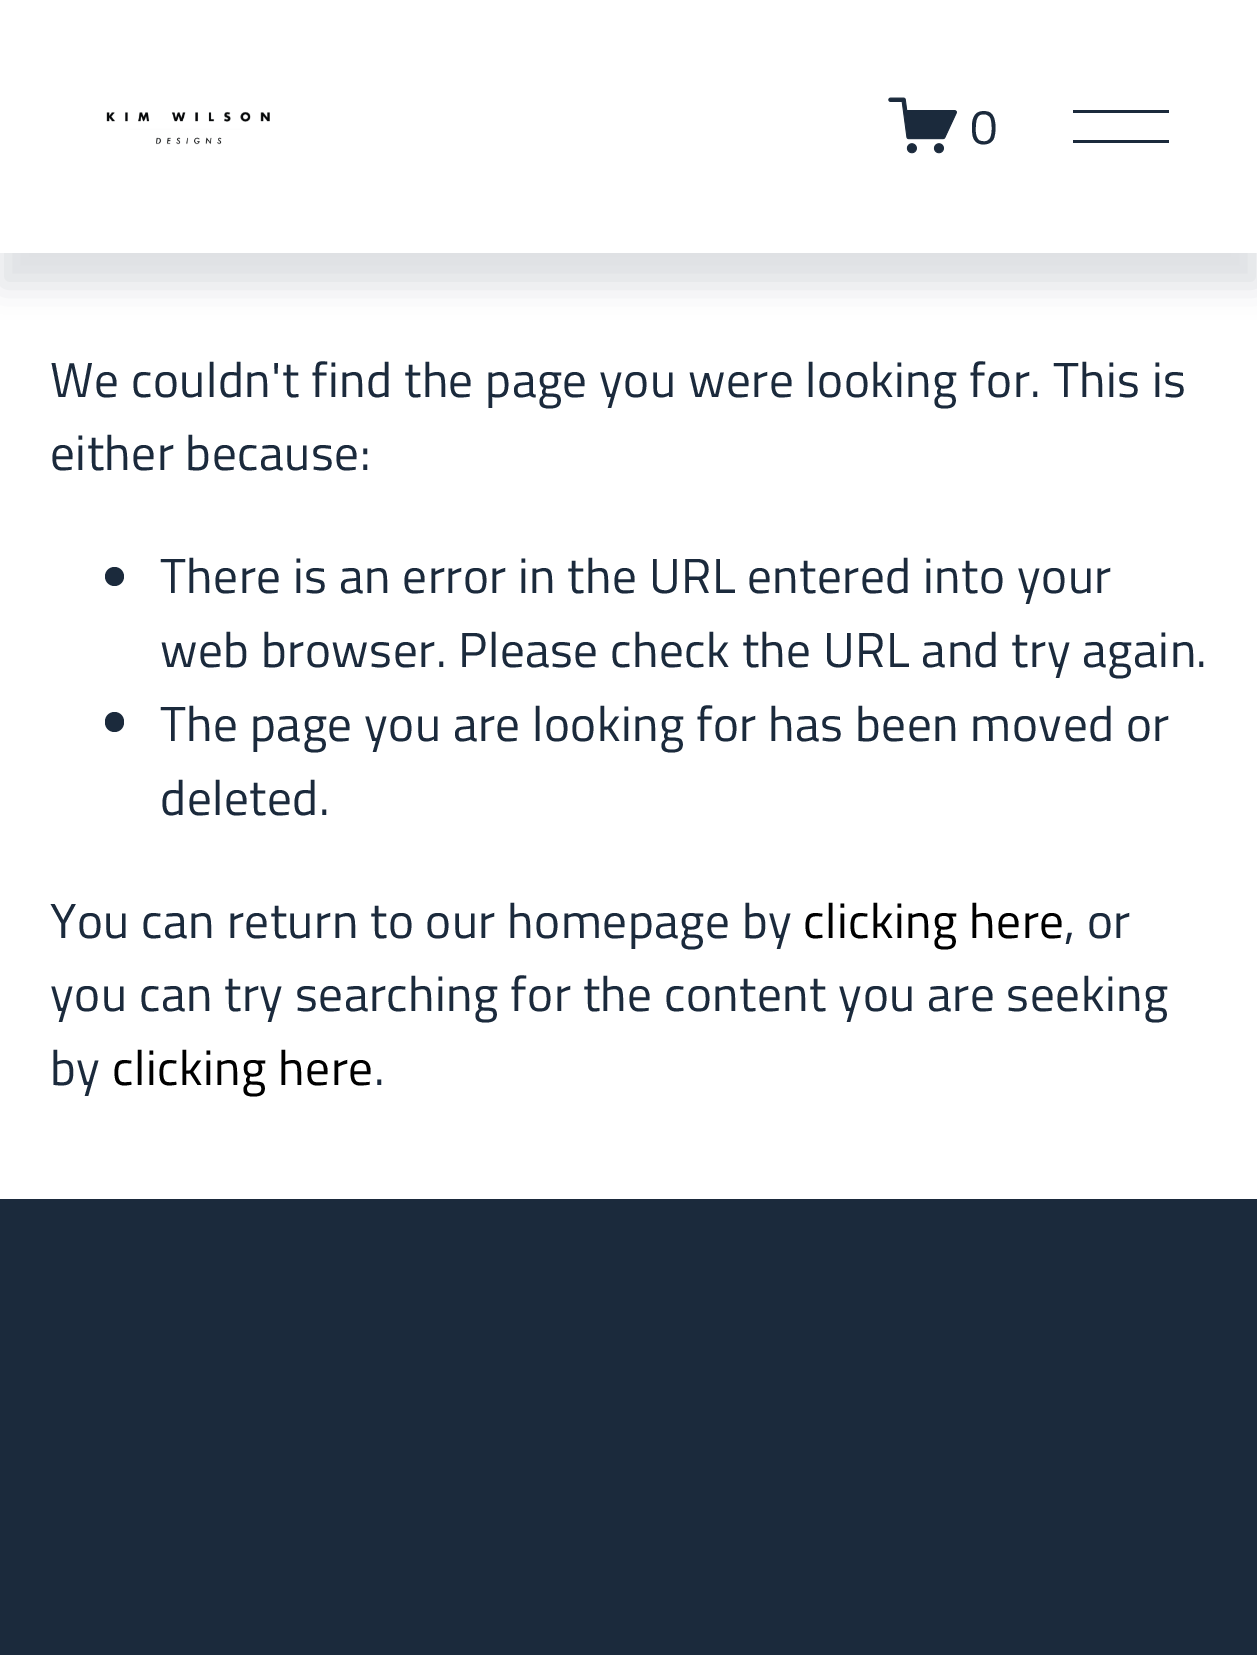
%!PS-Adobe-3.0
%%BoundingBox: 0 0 1257 1655
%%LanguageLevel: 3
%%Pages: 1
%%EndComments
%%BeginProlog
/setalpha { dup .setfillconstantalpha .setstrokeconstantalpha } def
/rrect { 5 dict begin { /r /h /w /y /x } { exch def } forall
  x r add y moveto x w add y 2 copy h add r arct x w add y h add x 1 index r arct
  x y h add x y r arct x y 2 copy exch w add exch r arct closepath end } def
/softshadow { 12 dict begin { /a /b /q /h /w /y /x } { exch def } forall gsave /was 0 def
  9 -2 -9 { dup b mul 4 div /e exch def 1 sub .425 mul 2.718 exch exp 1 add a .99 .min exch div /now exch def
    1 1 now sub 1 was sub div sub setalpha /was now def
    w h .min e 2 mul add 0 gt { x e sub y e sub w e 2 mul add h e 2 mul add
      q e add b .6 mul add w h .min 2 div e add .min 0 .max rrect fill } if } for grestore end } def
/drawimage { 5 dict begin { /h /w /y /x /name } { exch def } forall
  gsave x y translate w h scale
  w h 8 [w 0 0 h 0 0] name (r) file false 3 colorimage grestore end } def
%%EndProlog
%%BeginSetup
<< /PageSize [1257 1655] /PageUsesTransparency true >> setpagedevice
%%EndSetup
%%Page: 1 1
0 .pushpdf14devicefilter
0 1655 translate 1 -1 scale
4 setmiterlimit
1 setgray
0 0 1257 1655 rectfill
gsave
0 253 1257 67 rectclip
0.867 0.875 0.886 setrgbcolor
0 33 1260 253 0 16.5 1 softshadow
grestore
(images/1.raw) 106 111 164 34 drawimage
(images/2.raw) 888 97 69 57 drawimage
0.106 0.165 0.235 setrgbcolor
1073 110 96 3 rectfill
1073 140 96 3 rectfill
newpath 114.5 576.5 9.5 0 360 arc closepath fill
105 712 19 20 9.5 rrect fill
0 1199 1257 456 rectfill
/TitilliumWeb-Regular [49.2 0 0 -49.2 0 0] selectfont
970 144 moveto 0.5 0 (0) ashow
50 397 moveto 0.5 0 (We couldn't find the page you were looking for. This is) ashow
50 470 moveto 0.5 0 (either because:) ashow
160 593 moveto 0.5 0 (There is an error in the URL entered into your) ashow
160 667 moveto 0.5 0 (web browser. Please check the URL and try again.) ashow
160 741 moveto 0.5 0 (The page you are looking for has been moved or) ashow
160 815 moveto 0.5 0 (deleted.) ashow
50 938 moveto 0.5 0 (You can return to our homepage by) ashow
0 setgray
803 938 moveto 0.5 0 (clicking here) ashow
0.106 0.165 0.235 setrgbcolor
1064 938 moveto 0.5 0 (, or) ashow
50 1011 moveto 0.5 0 (you can try searching for the) ashow
664 1011 moveto 0.5 0 (content you are seeking) ashow
50 1085 moveto 0.5 0 (by) ashow
0 setgray
112 1085 moveto 0.5 0 (clicking here) ashow
0.106 0.165 0.235 setrgbcolor
374 1085 moveto 0.5 0 (.) ashow
.poppdf14devicefilter showpage
%%EOF
